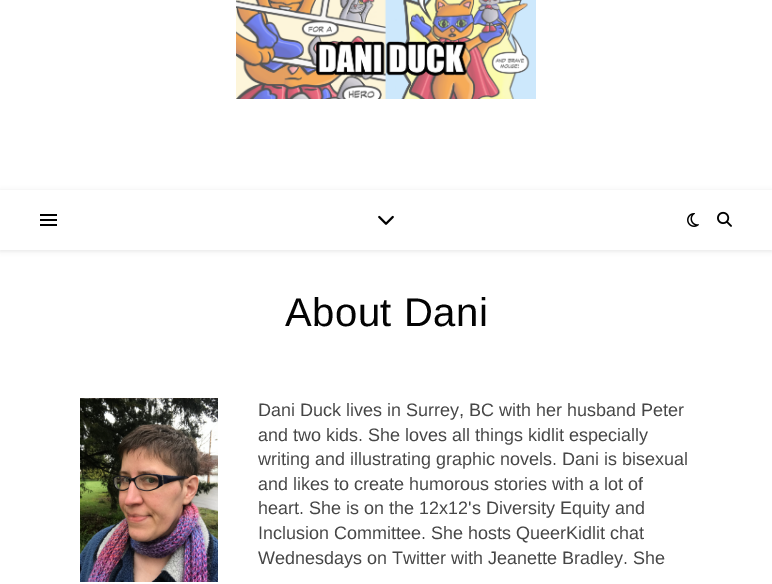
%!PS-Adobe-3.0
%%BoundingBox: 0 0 772 584
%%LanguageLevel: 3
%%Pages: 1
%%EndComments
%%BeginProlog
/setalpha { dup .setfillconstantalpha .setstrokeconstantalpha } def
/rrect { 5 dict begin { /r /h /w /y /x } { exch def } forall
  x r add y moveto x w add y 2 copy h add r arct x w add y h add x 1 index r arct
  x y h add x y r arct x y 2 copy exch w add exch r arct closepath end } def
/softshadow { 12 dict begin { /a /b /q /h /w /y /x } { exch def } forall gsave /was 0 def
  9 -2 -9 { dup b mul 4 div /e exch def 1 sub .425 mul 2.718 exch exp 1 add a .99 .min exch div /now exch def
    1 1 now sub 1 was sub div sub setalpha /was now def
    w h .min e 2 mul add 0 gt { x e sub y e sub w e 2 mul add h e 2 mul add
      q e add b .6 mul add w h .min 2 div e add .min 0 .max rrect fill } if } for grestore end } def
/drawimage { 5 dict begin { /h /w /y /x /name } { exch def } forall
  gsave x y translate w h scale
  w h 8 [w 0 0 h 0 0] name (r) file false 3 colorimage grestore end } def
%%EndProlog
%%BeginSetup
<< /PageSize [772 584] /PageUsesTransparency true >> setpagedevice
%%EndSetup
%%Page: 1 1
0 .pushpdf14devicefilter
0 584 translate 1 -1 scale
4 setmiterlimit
1 setgray
0 0 772 584 rectfill
(images/1.raw) 236 0 300 99 drawimage
0 setgray
0 191 772 60 0 2.5 0.1 softshadow
1 setgray
0 190 772 60 rectfill
0 setgray
40 214 17 2 rectfill
40 219 17 2 rectfill
40 224 17 2 rectfill
(images/2.raw) 378 215 16 10 drawimage
(images/3.raw) 687 213 12 14 drawimage
(images/4.raw) 717 211 15 16 drawimage
(images/5.raw) 80 398 138 184 drawimage
/LiberationSans-Regular [40 0 0 -40 0 0] selectfont
0.012 setgray
285 326 moveto 0.5 0 (About Dani) ashow
/LiberationSans-Regular [18 0 0 -18 0 0] selectfont
0.275 setgray
258 416 moveto (Dani Duck lives in Surrey, BC with her husband Peter) show
258 441 moveto (and two kids. She loves all things kidlit especially) show
258 465 moveto (writing and illustrating graphic novels. Dani is bisexual) show
258 490 moveto (and likes to create humorous stories with a lot of) show
258 514 moveto (heart. She is on the 12x12's Diversity Equity and) show
258 539 moveto (Inclusion Committee. She hosts QueerKidlit chat) show
258 564 moveto (Wednesdays on Twitter with Jeanette Bradley. She) show
.poppdf14devicefilter showpage
%%EOF
